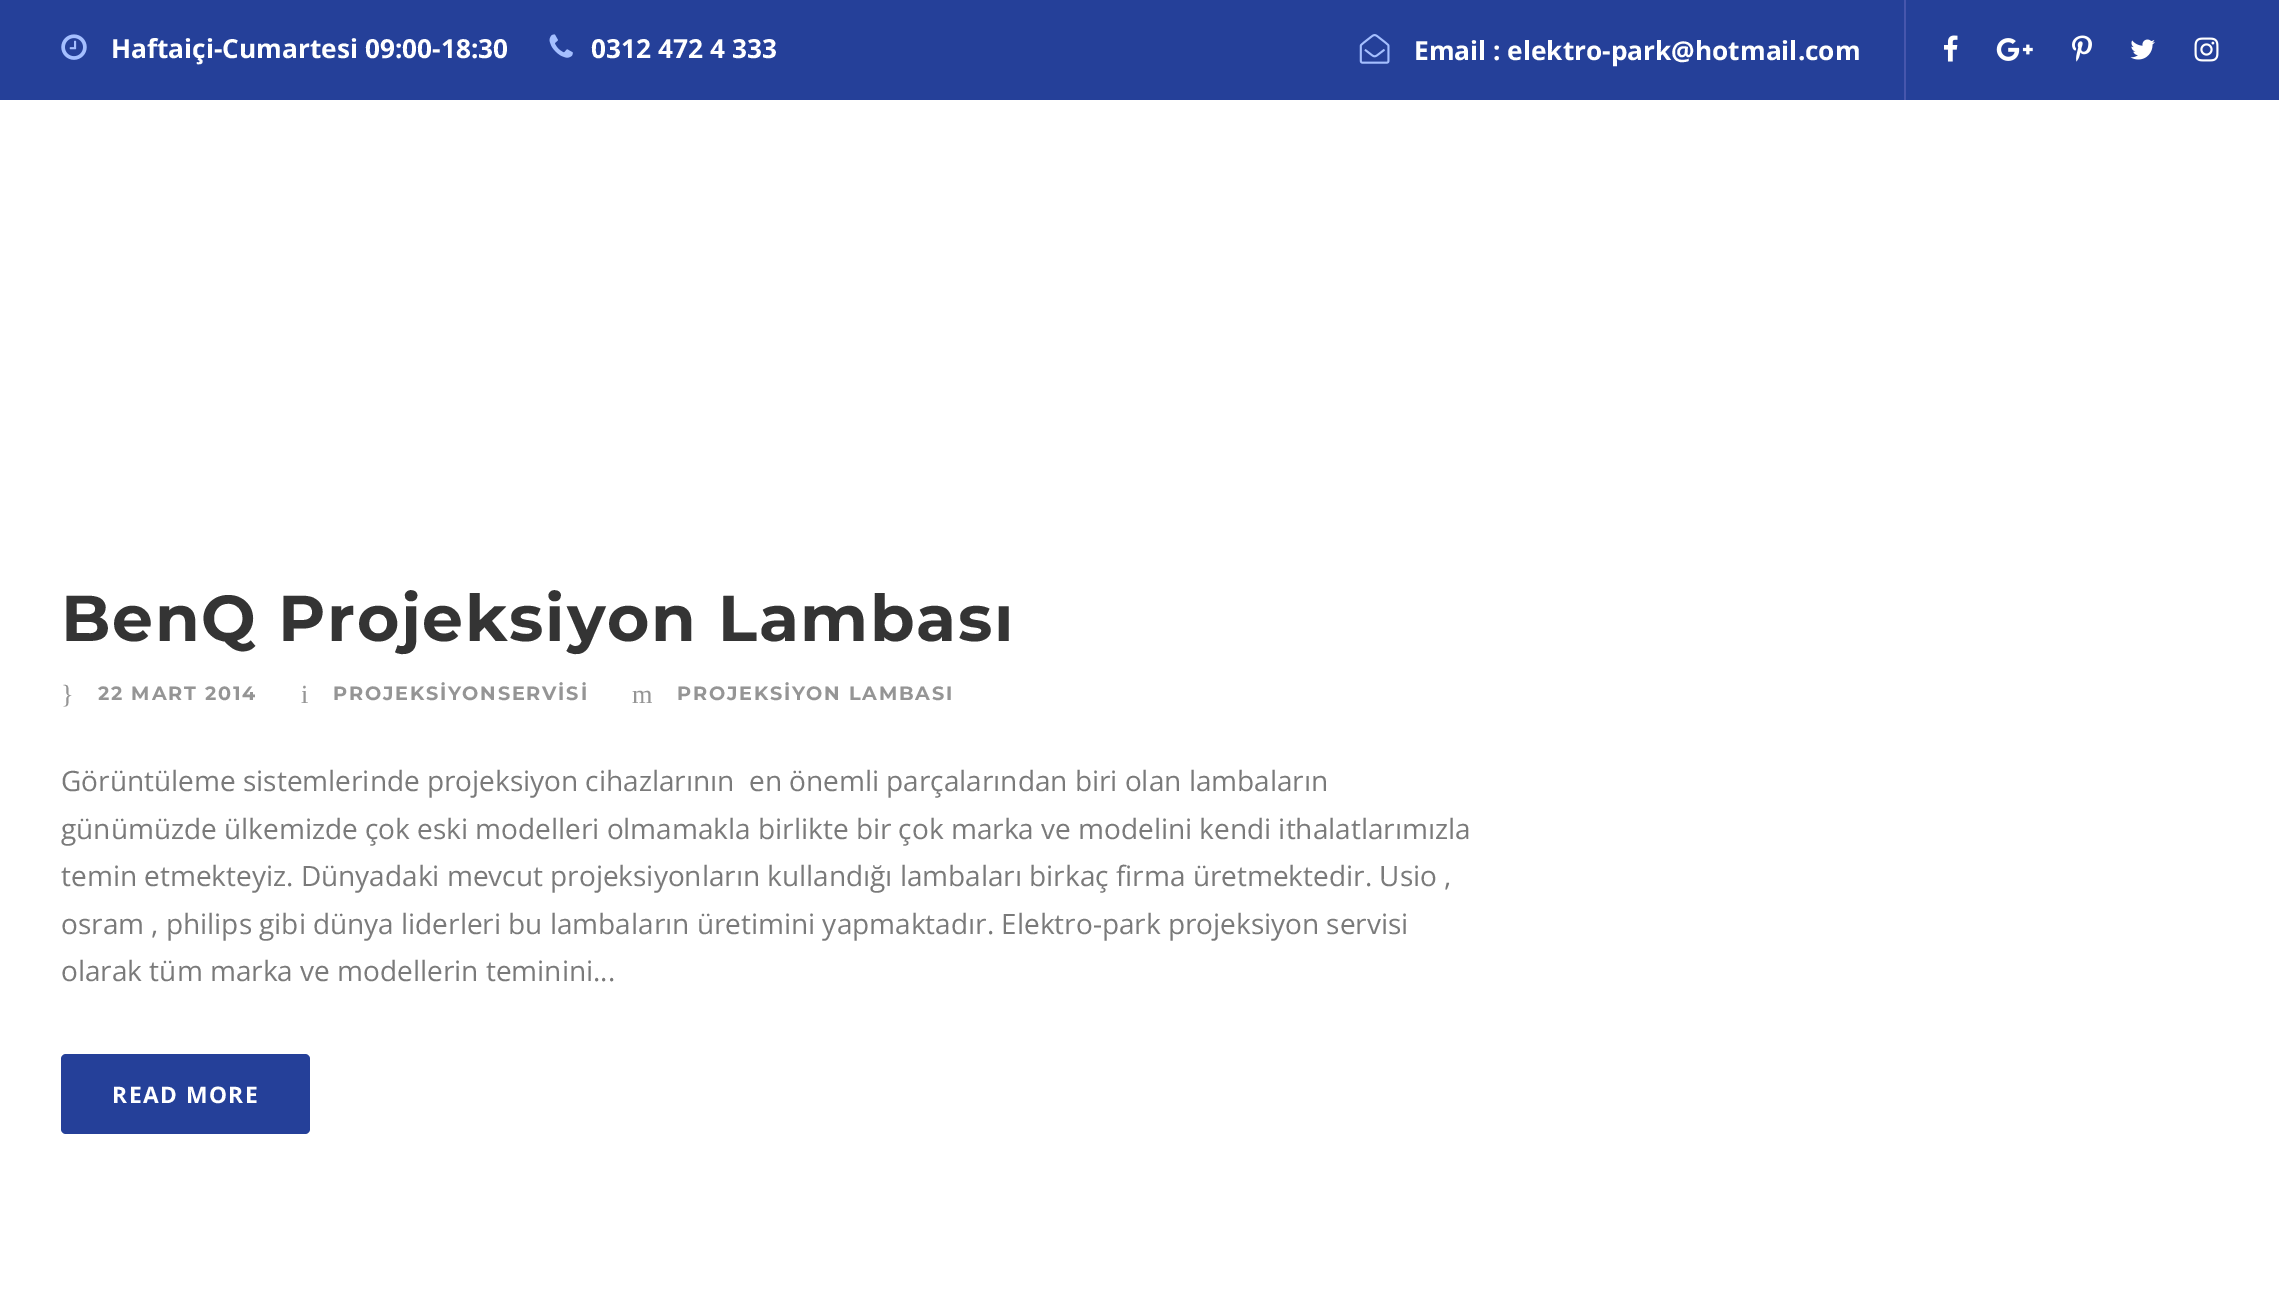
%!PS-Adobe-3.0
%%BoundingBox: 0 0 2279 1292
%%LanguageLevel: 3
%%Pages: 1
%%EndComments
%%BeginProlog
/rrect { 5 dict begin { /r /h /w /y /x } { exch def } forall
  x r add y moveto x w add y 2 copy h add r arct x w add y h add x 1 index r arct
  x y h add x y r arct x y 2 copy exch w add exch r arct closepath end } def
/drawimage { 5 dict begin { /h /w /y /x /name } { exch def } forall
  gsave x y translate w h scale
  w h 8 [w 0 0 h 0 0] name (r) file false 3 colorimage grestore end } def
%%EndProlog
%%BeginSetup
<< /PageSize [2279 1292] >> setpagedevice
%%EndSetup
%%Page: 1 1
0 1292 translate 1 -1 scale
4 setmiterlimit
1 setgray
0 0 2279 1292 rectfill
0.145 0.251 0.6 setrgbcolor
0 0 2279 100 rectfill
(images/1.raw) 61 34 26 26 drawimage
(images/2.raw) 549 34 24 24 drawimage
(images/3.raw) 1359 34 31 30 drawimage
0.278 0.337 0.678 setrgbcolor
1904 0 2 100 rectfill
(images/4.raw) 1944 35 14 27 drawimage
(images/5.raw) 1996 38 37 23 drawimage
(images/6.raw) 2072 35 20 27 drawimage
(images/7.raw) 2130 39 25 21 drawimage
(images/8.raw) 2194 37 25 25 drawimage
0.145 0.251 0.6 setrgbcolor
61 1054 249 80 5 rrect fill
/OpenSans-Bold [26.25 0 0 -26.25 0 0] selectfont
1 setgray
111 58 moveto (Haftaiçi-Cumartesi 09:00-18:30) show
591 58 moveto (0312 472 4 333) show
1414 60 moveto (Email : elektro-park@hotmail.com) show
/Montserrat-Bold [64.75 0 0 -64.75 0 0] selectfont
0.204 setgray
61 641 moveto 1.75 0 (BenQ Projeksiyon Lambası) ashow
/LiberationSerif-Regular [26.25 0 0 -26.25 0 0] selectfont
0.584 setgray
61 703 moveto 1.75 0 (}) ashow
/Montserrat-Bold [19.25 0 0 -19.25 0 0] selectfont
98 700 moveto 1.75 0 (22 MART 2014) ashow
/LiberationSerif-Regular [26.25 0 0 -26.25 0 0] selectfont
301 703 moveto 1.75 0 (i) ashow
/Montserrat-Bold [19.25 0 0 -19.25 0 0] selectfont
333 700 moveto 1.75 0 (PROJEKSİYONSERVİSİ) ashow
/LiberationSerif-Regular [26.25 0 0 -26.25 0 0] selectfont
632 703 moveto 1.75 0 (m) ashow
/Montserrat-Bold [19.25 0 0 -19.25 0 0] selectfont
677 700 moveto 1.75 0 (PROJEKSİYON LAMBASI) ashow
/OpenSans-Regular [28 0 0 -28 0 0] selectfont
0.478 setgray
61 791 moveto (Görüntüleme sistemlerinde projeksiyon cihazlarının  en önemli parçalarından biri olan lambaların) show
61 839 moveto (günümüzde ülkemizde çok eski modelleri olmamakla birlikte bir çok marka ve modelini kendi ithalatlarımızla) show
61 886 moveto (temin etmekteyiz. Dünyadaki mevcut projeksiyonların kullandığı lambaları birkaç firma üretmektedir. Usio ,) show
61 934 moveto (osram , philips gibi dünya liderleri bu lambaların üretimini yapmaktadır. Elektro-park projeksiyon servisi) show
61 981 moveto (olarak tüm marka ve modellerin teminini...) show
/OpenSans-Bold [22.75 0 0 -22.75 0 0] selectfont
1 setgray
112 1103 moveto 1.5 0 (READ MORE) ashow
showpage
%%EOF
